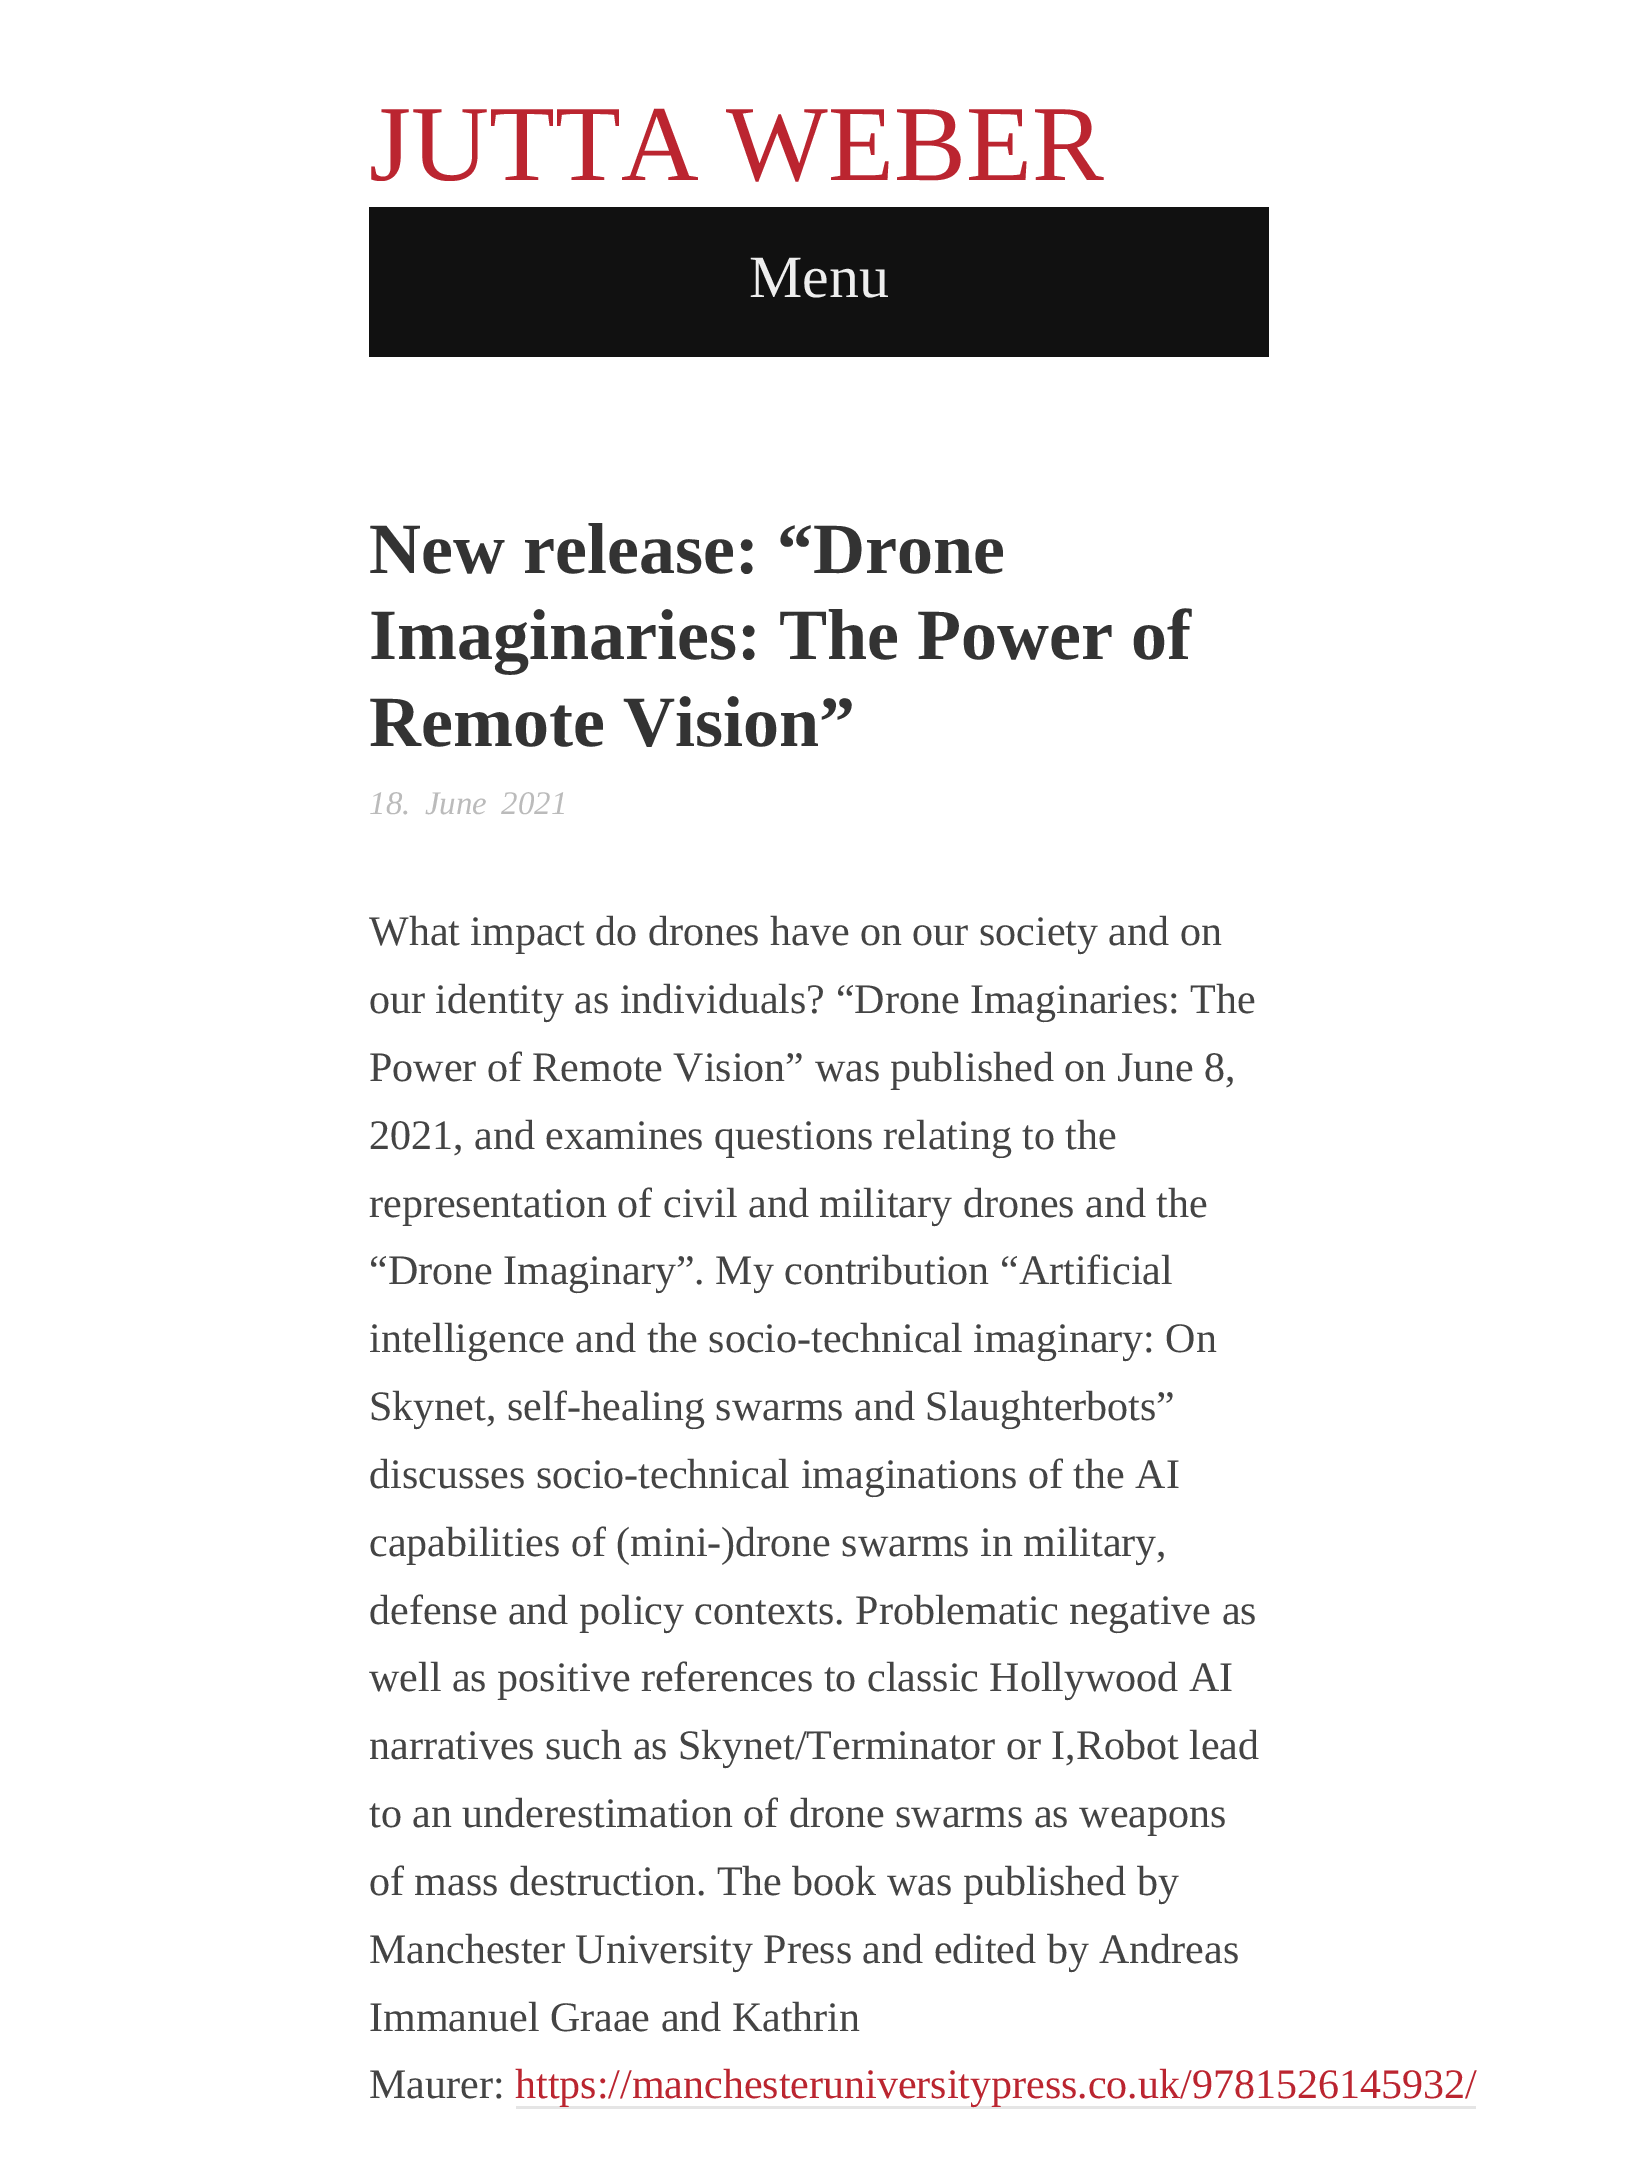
%!PS-Adobe-3.0
%%BoundingBox: 0 0 1637 2172
%%LanguageLevel: 3
%%Pages: 1
%%EndComments
%%BeginProlog
%%EndProlog
%%BeginSetup
<< /PageSize [1637 2172] >> setpagedevice
%%EndSetup
%%Page: 1 1
0 2172 translate 1 -1 scale
4 setmiterlimit
1 setgray
0 0 1637 2172 rectfill
0.067 setgray
369 207 900 150 rectfill
0.898 setgray
516 2106 960 3 rectfill
/LiberationSerif-Regular [108 0 0 -108 0 0] selectfont
0.733 0.145 0.188 setrgbcolor
369 180 moveto (JUTTA WEBER) show
/LiberationSerif-Regular [60 0 0 -60 0 0] selectfont
0.933 setgray
749 297 moveto (Menu) show
/LiberationSerif-Bold [72 0 0 -72 0 0] selectfont
0.2 setgray
369 573 moveto (New release: “Drone) show
369 659 moveto (Imaginaries: The Power of) show
369 746 moveto (Remote Vision”) show
/LiberationSerif-Italic [33 0 0 -33 0 0] selectfont
0.733 setgray
369 814 moveto 6 0 32 (18. June 2021) widthshow
/LiberationSerif-Regular [42 0 0 -42 0 0] selectfont
0.267 setgray
369 945 moveto (What impact do drones have on our society and on) show
369 1013 moveto (our identity as individuals? “Drone Imaginaries: The) show
369 1081 moveto (Power of Remote Vision” was published on June 8,) show
369 1149 moveto (2021, and examines questions relating to the) show
369 1217 moveto (representation of civil and military drones and the) show
369 1284 moveto (“Drone Imaginary”. My contribution “Artificial) show
369 1352 moveto (intelligence and the socio-technical imaginary: On) show
369 1420 moveto (Skynet, self-healing swarms and Slaughterbots”) show
369 1488 moveto (discusses socio-technical imaginations of the AI) show
369 1556 moveto (capabilities of \(mini-\)drone swarms in military,) show
369 1624 moveto (defense and policy contexts. Problematic negative as) show
369 1691 moveto (well as positive references to classic Hollywood AI) show
369 1759 moveto (narratives such as Skynet/Terminator or I,Robot lead) show
369 1827 moveto (to an underestimation of drone swarms as weapons) show
369 1895 moveto (of mass destruction. The book was published by) show
369 1963 moveto (Manchester University Press and edited by Andreas) show
369 2031 moveto (Immanuel Graae and Kathrin) show
369 2098 moveto (Maurer:) show
0.733 0.145 0.188 setrgbcolor
515 2098 moveto (https://manchesteruniversitypress.co.uk/9781526145932/) show
showpage
%%EOF
